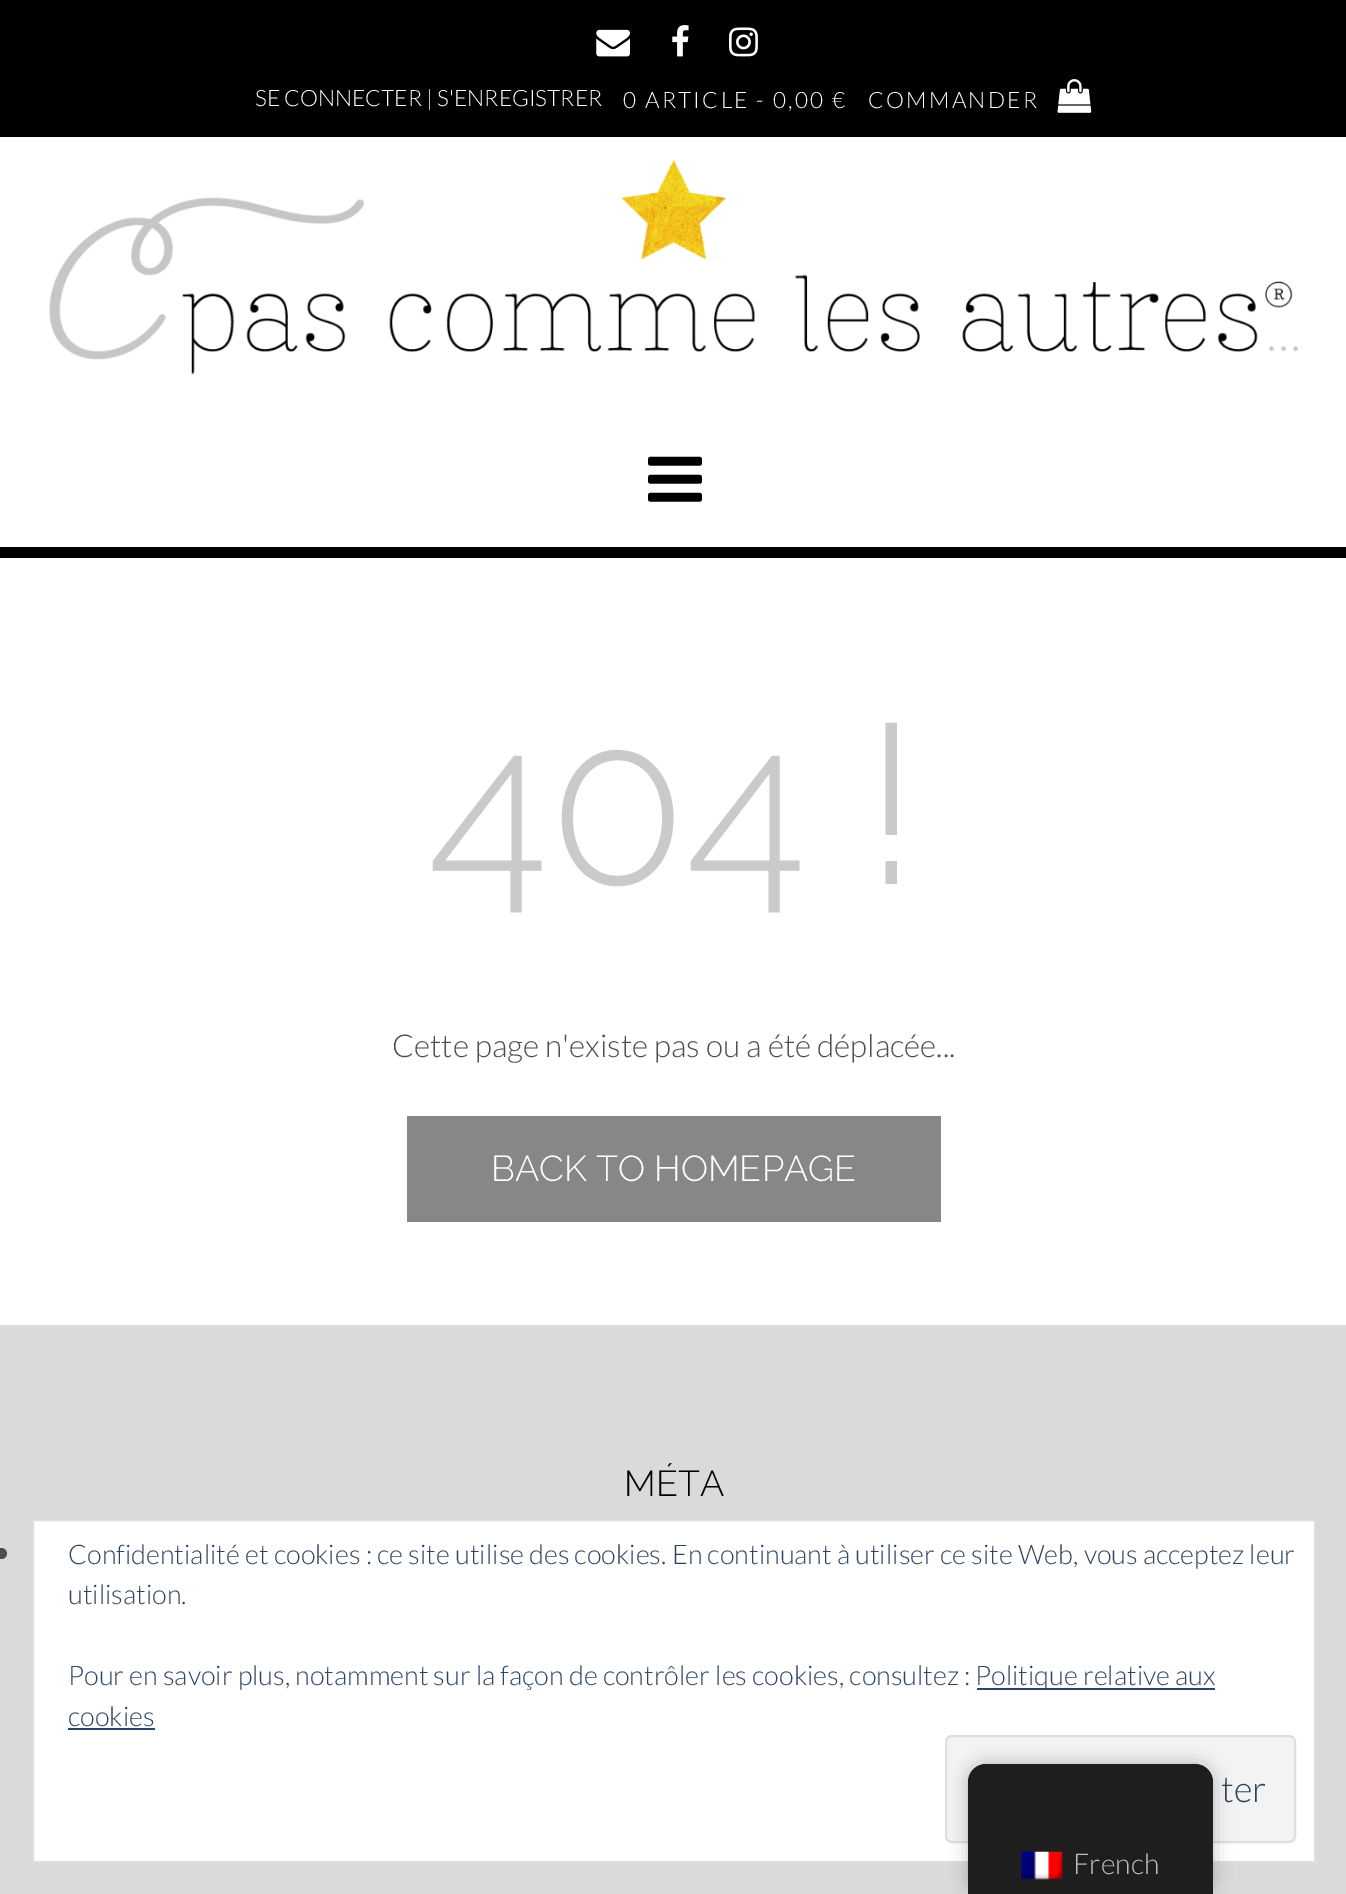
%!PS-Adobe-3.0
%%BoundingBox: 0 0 1346 1894
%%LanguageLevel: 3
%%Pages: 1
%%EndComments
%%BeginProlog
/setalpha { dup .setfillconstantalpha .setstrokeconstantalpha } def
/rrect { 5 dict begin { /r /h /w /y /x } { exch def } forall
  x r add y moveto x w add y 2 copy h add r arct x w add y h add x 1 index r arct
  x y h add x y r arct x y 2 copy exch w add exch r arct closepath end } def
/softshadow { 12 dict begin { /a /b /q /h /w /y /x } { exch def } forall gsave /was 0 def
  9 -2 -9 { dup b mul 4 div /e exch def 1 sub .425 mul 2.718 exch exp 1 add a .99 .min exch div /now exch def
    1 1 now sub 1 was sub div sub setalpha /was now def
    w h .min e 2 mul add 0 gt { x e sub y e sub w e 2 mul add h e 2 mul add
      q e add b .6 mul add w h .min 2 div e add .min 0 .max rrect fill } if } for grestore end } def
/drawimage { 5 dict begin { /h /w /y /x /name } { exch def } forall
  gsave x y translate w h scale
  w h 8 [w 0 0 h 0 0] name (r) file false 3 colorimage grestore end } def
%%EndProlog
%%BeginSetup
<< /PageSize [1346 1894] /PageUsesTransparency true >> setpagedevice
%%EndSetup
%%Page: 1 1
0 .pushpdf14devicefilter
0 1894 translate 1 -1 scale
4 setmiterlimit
1 setgray
0 0 1346 1894 rectfill
0 setgray
0 0 1346 137 rectfill
(images/1.raw) 596 29 34 28 drawimage
(images/2.raw) 672 25 17 32 drawimage
(images/3.raw) 729 27 29 30 drawimage
(images/4.raw) 1057 79 35 34 drawimage
(images/5.raw) 49 159 1250 216 drawimage
0 547 1346 11 rectfill
(images/6.raw) 648 456 54 46 drawimage
0.529 setgray
407 1116 534 106 rectfill
0.855 setgray
0 1325 1346 569 rectfill
0.31 setgray
newpath 1.5 1553.5 5.5 0 360 arc closepath fill
1 setgray
newpath 33 1520 moveto 1315 1520 lineto 1315 1862 lineto 33 1862 lineto closepath gsave fill grestore
0.871 setgray
2 setlinewidth
stroke
0.18 0.267 0.404 setrgbcolor
977 1688 238 2 rectfill
68 1728 87 2 rectfill
0.953 setgray
946 1736 349 106 6 rrect gsave fill grestore
0.871 setgray
stroke
0 setgray
968 1764 245 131 18 9 0.25 softshadow
0.118 setgray
newpath 986 1764 moveto 1195 1764 lineto 1205 1764 1213 1772 1213 1782 curveto 1213 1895 lineto 968 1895 lineto 968 1782 lineto 968 1772 976 1764 986 1764 curveto closepath fill
(images/7.raw) 1021 1851 42 29 drawimage
/Lato-Light [22.5 0 0 -22.5 0 0] selectfont
1 setgray
255 106 moveto (SE CONNECTER | S'ENREGISTRER) show
623 108 moveto 2.25 0 (0 ARTICLE - 0,00 €) ashow
868 108 moveto 2.25 0 (COMMANDER) ashow
/Raleway-Light [225 0 0 -225 0 0] selectfont
0.784 0.792 0.8 setrgbcolor
428 884 moveto (404 !) show
/Lato-Light [31.5 0 0 -31.5 0 0] selectfont
0.31 setgray
392 1057 moveto (Cette page n'existe pas ou a été déplacée...) show
/Raleway-Light [36 0 0 -36 0 0] selectfont
1 setgray
491 1181 moveto (BACK TO HOMEPAGE) show
0 setgray
624 1496 moveto (MÉTA) show
/Lato-Light [27 0 0 -27 0 0] selectfont
0.18 0.267 0.404 setrgbcolor
68 1564 moveto (Confidentialité et cookies : ce site utilise des cookies. En continuant à utiliser ce site Web, vous acceptez leur) show
68 1604 moveto (utilisation.) show
68 1685 moveto (Pour en savoir plus, notamment sur la façon de contrôler les cookies, consultez :) show
975 1685 moveto (Politique relative aux) show
68 1726 moveto (cookies) show
/Lato-Light [36 0 0 -36 0 0] selectfont
0.18 0.267 0.325 setrgbcolor
1221 1802 moveto (ter) show
/Lato-Light [28.5 0 0 -28.5 0 0] selectfont
0.741 setgray
1073 1874 moveto (French) show
.poppdf14devicefilter showpage
%%EOF
